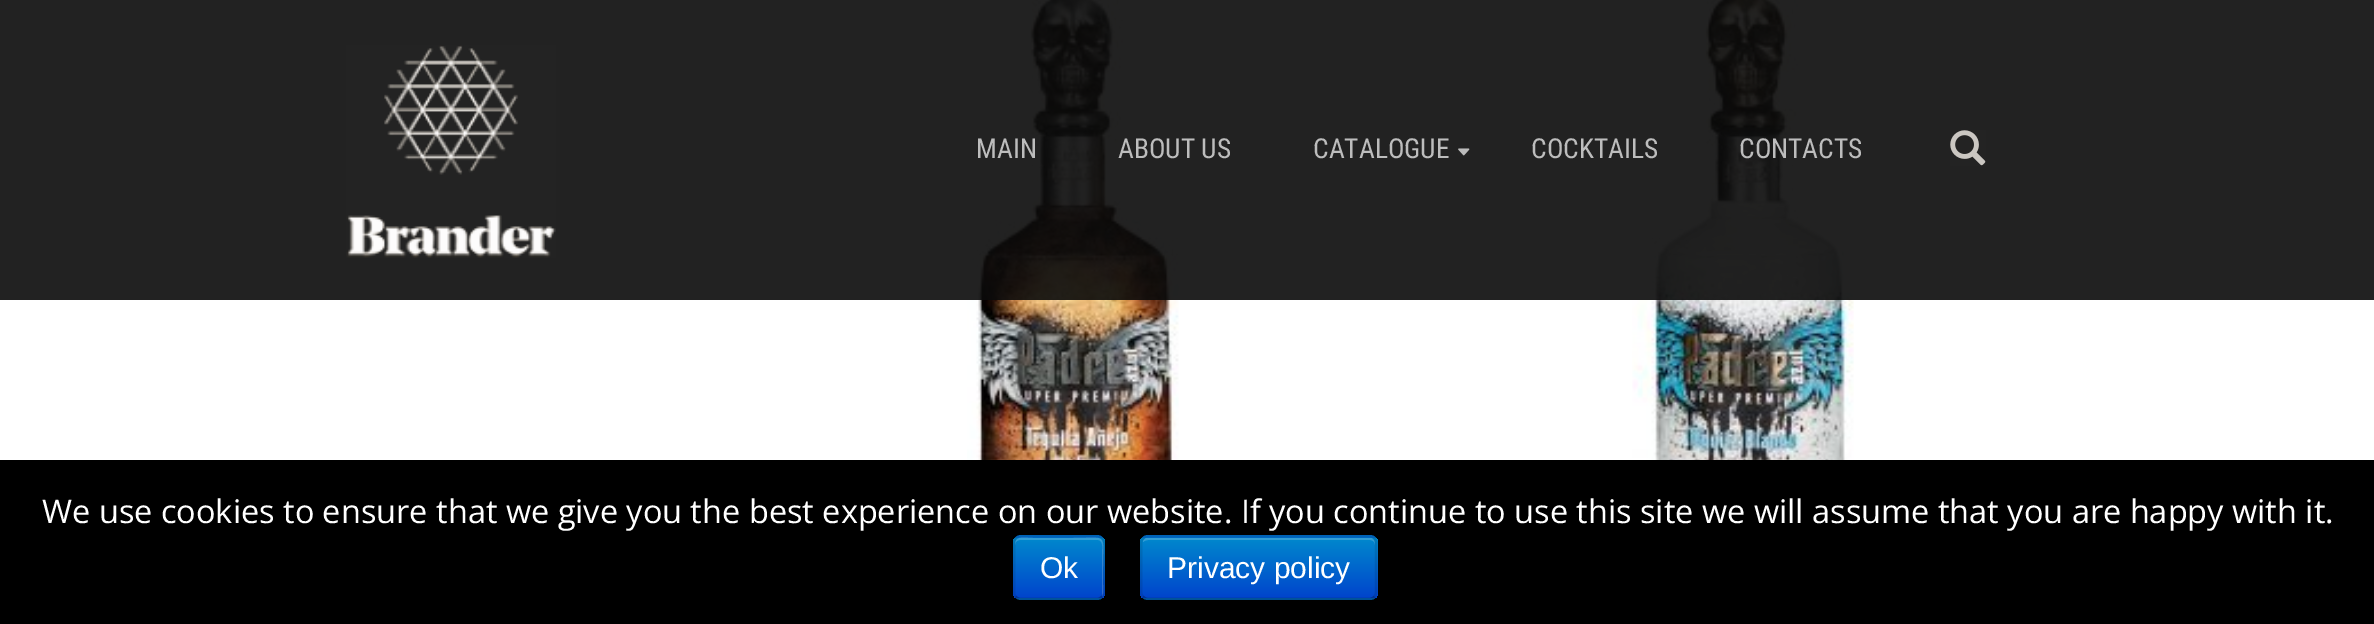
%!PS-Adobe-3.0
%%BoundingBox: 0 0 2374 624
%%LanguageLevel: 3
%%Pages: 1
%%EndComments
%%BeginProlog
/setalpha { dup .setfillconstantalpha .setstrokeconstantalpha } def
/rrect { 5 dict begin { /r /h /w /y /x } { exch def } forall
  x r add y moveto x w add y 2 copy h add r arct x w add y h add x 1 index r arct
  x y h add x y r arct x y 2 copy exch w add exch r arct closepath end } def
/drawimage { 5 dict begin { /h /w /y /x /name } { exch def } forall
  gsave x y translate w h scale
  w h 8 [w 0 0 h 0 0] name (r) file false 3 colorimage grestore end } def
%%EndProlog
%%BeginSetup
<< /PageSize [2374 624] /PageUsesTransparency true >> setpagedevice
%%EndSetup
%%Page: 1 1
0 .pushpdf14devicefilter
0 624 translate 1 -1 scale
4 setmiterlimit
1 setgray
0 0 2374 624 rectfill
(images/1.raw) 967 0 212 460 drawimage
(images/2.raw) 1632 0 222 460 drawimage
0.9 setalpha
0.039 setgray
0 0 2374 300 rectfill
1 setalpha
(images/3.raw) 346 45 210 213 drawimage
(images/4.raw) 1458 148 12 8 drawimage
(images/5.raw) 1950 130 36 36 drawimage
0 setgray
0 460 2374 164 rectfill
0 0.427 0.8 setrgbcolor
1013 535 92 65 8 rrect fill
gsave
1013 535 92 65 8 rrect clip newpath
gsave newpath 1013 538 moveto 1105 538 lineto 1105 598 lineto 1013 598 lineto closepath clip newpath
<< /ShadingType 2 /ColorSpace /DeviceRGB /Coords [1059 538 1059 598] /Extend [true true] /Function << /FunctionType 2 /Domain [0 1] /C0 [0 0.533 0.8] /C1 [0 0.267 0.8] /N 1 >> >> shfill grestore
grestore
0.2 setalpha
1 setgray
newpath 1020 540 moveto 1098 540 lineto 1104 540 1102 551 1102 553 curveto 1102 596 lineto 1104 593 1103 587 1103 585 curveto 1103 568 lineto 1103 532 1109 538 1072 538 curveto 1033 538 lineto 1025 538 1015 535 1015 545 curveto 1015 542 1017 540 1020 540 curveto closepath fill
0.25 setalpha
0 setgray
2.5 setlinewidth
newpath 1102 597 moveto 1100.5 598 1099 599 1097.5 599 curveto 1020 599 lineto 1018.5 599 1017 598 1015.5 597 curveto stroke
0.1 setalpha
newpath 1015.5 597 moveto 1014.5 595.5 1014 594 1014 592.5 curveto 1014 542.5 lineto 1014 541 1014.5 539.5 1015.5 538 curveto 1017 537 1018.5 536 1020 536 curveto 1097.5 536 lineto 1099 536 1100.5 537 1102 538 curveto 1103 539.5 1104 541 1104 542.5 curveto 1104 592.5 lineto 1104 594 1103 595.5 1102 597 curveto stroke
1 setalpha
0 0.427 0.8 setrgbcolor
1140 535 238 65 8 rrect fill
gsave
1140 535 238 65 8 rrect clip newpath
gsave newpath 1140 538 moveto 1378 538 lineto 1378 598 lineto 1140 598 lineto closepath clip newpath
<< /ShadingType 2 /ColorSpace /DeviceRGB /Coords [1259 538 1259 598] /Extend [true true] /Function << /FunctionType 2 /Domain [0 1] /C0 [0 0.533 0.8] /C1 [0 0.267 0.8] /N 1 >> >> shfill grestore
grestore
0.2 setalpha
1 setgray
newpath 1148 540 moveto 1370 540 lineto 1373 540 1375 542 1375 545 curveto 1375 542 1374 538 1370 538 curveto 1146 538 lineto 1145 539 1143 540 1143 542 curveto 1144 541 1146 540 1148 540 curveto closepath fill
0.25 setalpha
0 setgray
newpath 1374.5 597 moveto 1373 598 1371.5 599 1370 599 curveto 1147.5 599 lineto 1146 599 1144.5 598 1143 597 curveto stroke
0.1 setalpha
newpath 1143 597 moveto 1142 595.5 1141 594 1141 592.5 curveto 1141 542.5 lineto 1141 541 1142 539.5 1143 538 curveto 1144.5 537 1146 536 1147.5 536 curveto 1370 536 lineto 1371.5 536 1373 537 1374.5 538 curveto 1375.5 539.5 1376 541 1376 542.5 curveto 1376 592.5 lineto 1376 594 1375.5 595.5 1374.5 597 curveto stroke
/RobotoCondensed-Regular [27.5 0 0 -27.5 0 0] selectfont
1 setalpha
0.741 setgray
976 158 moveto (MAIN) show
1118 158 moveto (ABOUT US) show
1313 158 moveto (CATALOGUE) show
1531 158 moveto (COCKTAILS) show
1739 158 moveto (CONTACTS) show
/OpenSans-Regular [32.5 0 0 -32.5 0 0] selectfont
1 setgray
42 523 moveto (We use cookies to ensure that we give you the best experience on our website. If you continue to use this site we will assume that you are happy with it.) show
/LiberationSans-Regular [30 0 0 -30 0 0] selectfont
1040 578 moveto (Ok) show
1167 578 moveto (Privacy policy) show
.poppdf14devicefilter showpage
%%EOF
